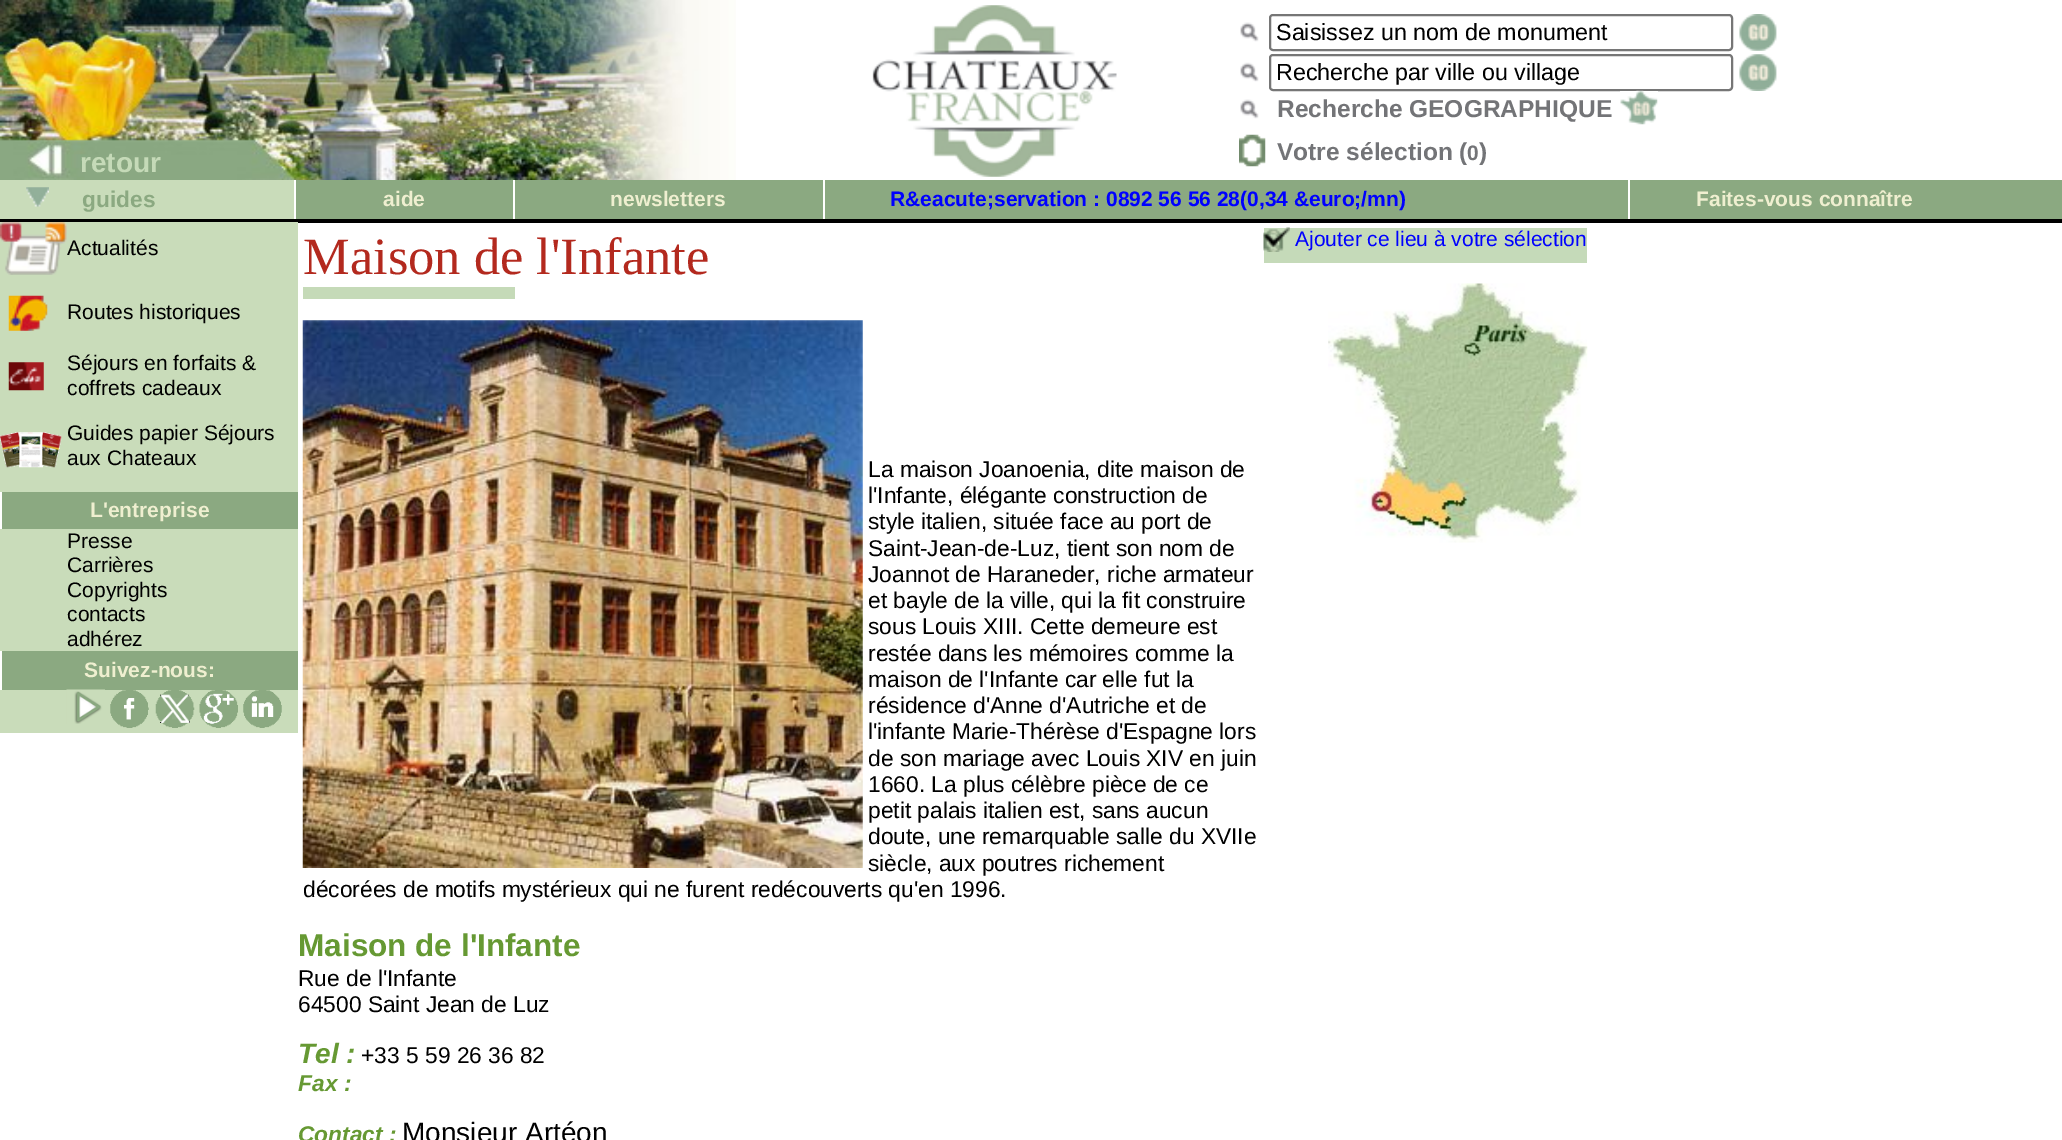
%!PS-Adobe-3.0
%%BoundingBox: 0 0 2062 1140
%%LanguageLevel: 3
%%Pages: 1
%%EndComments
%%BeginProlog
/rrect { 5 dict begin { /r /h /w /y /x } { exch def } forall
  x r add y moveto x w add y 2 copy h add r arct x w add y h add x 1 index r arct
  x y h add x y r arct x y 2 copy exch w add exch r arct closepath end } def
/drawimage { 5 dict begin { /h /w /y /x /name } { exch def } forall
  gsave x y translate w h scale
  w h 8 [w 0 0 h 0 0] name (r) file false 3 colorimage grestore end } def
%%EndProlog
%%BeginSetup
<< /PageSize [2062 1140] >> setpagedevice
%%EndSetup
%%Page: 1 1
0 1140 translate 1 -1 scale
4 setmiterlimit
1 setgray
0 0 2062 1140 rectfill
(images/1.raw) 0 0 736 180 drawimage
(images/2.raw) 872 5 245 172 drawimage
(images/3.raw) 1240 22 19 20 drawimage
0.463 setgray
2 setlinewidth
1270 15 462 35 3 rrect stroke
(images/4.raw) 1739 14 38 37 drawimage
(images/5.raw) 1240 62 19 20 drawimage
1270 55 462 35 3 rrect stroke
(images/6.raw) 1739 54 38 37 drawimage
(images/7.raw) 1240 99 19 20 drawimage
(images/8.raw) 1620 90 38 35 drawimage
(images/9.raw) 1239 134 27 33 drawimage
0.788 0.863 0.729 setrgbcolor
0 180 294 39 rectfill
(images/10.raw) 26 187 23 20 drawimage
0.545 0.663 0.506 setrgbcolor
296 180 217 39 rectfill
515 180 308 39 rectfill
825 180 803 39 rectfill
1630 180 432 39 rectfill
0 setgray
0 219 2062 4 rectfill
0.788 0.863 0.729 setrgbcolor
0 222 298 511 rectfill
(images/11.raw) 0 222 67 53 drawimage
(images/12.raw) 8 295 40 36 drawimage
(images/13.raw) 8 362 36 29 drawimage
(images/14.raw) 0 432 62 36 drawimage
0.545 0.663 0.506 setrgbcolor
2 492 296 37 rectfill
1 setgray
0 492 2 37 rectfill
0.545 0.663 0.506 setrgbcolor
2 651 296 39 rectfill
1 setgray
0 651 2 39 rectfill
(images/15.raw) 66 689 39 35 drawimage
(images/16.raw) 110 690 39 38 drawimage
(images/17.raw) 155 690 40 38 drawimage
(images/18.raw) 199 690 39 38 drawimage
(images/19.raw) 243 690 39 38 drawimage
0.773 0.855 0.722 setrgbcolor
303 287 212 12 rectfill
(images/20.raw) 302 320 561 548 drawimage
0.773 0.855 0.725 setrgbcolor
1264 228 323 35 rectfill
(images/21.raw) 1263 227 27 25 drawimage
(images/22.raw) 1328 283 260 260 drawimage
/LiberationSans-Bold [28 0 0 -28 0 0] selectfont
0.773 0.855 0.722 setrgbcolor
80 172 moveto (retour) show
/LiberationSans-Regular [23.3 0 0 -23.3 0 0] selectfont
0 setgray
1276 40 moveto (Saisissez un nom de monument) show
1276 80 moveto (Recherche par ville ou village) show
/LiberationSans-Bold [24.5 0 0 -24.5 0 0] selectfont
0.451 0.455 0.467 setrgbcolor
1277 117 moveto (Recherche GEOGRAPHIQUE) show
1277 160 moveto (Votre sélection \() show
/LiberationSans-Bold [21 0 0 -21 0 0] selectfont
1467 160 moveto (0) show
/LiberationSans-Bold [24.5 0 0 -24.5 0 0] selectfont
1479 160 moveto (\)) show
/LiberationSans-Bold [22.75 0 0 -22.75 0 0] selectfont
0.545 0.663 0.506 setrgbcolor
82 207 moveto (guides) show
/LiberationSans-Bold [21 0 0 -21 0 0] selectfont
0.937 0.937 0.816 setrgbcolor
383 206 moveto (aide) show
610 206 moveto (newsletters) show
0 0 1 setrgbcolor
890 206 moveto (R&eacute;servation : 0892 56 56 28\(0,34 &euro;/mn\)) show
0.937 0.937 0.816 setrgbcolor
1696 206 moveto (Faites-vous connaître) show
/LiberationSans-Regular [21 0 0 -21 0 0] selectfont
0 setgray
67 255 moveto (Actualités) show
67 319 moveto (Routes historiques) show
67 370 moveto (Séjours en forfaits &) show
67 395 moveto (coffrets cadeaux) show
67 440 moveto (Guides papier Séjours) show
67 465 moveto (aux Chateaux) show
/LiberationSans-Bold [21 0 0 -21 0 0] selectfont
0.937 0.937 0.816 setrgbcolor
90 517 moveto (L'entreprise) show
/LiberationSans-Regular [21 0 0 -21 0 0] selectfont
0 setgray
67 548 moveto (Presse) show
67 572 moveto (Carrières) show
67 597 moveto (Copyrights) show
67 621 moveto (contacts) show
67 646 moveto (adhérez) show
/LiberationSans-Bold [21 0 0 -21 0 0] selectfont
0.937 0.937 0.816 setrgbcolor
84 677 moveto (Suivez-nous:) show
/LiberationSerif-Regular [52.5 0 0 -52.5 0 0] selectfont
0.702 0.161 0.118 setrgbcolor
303 274 moveto (Maison de l'Infante) show
/LiberationSans-Regular [22.75 0 0 -22.75 0 0] selectfont
0 setgray
868 477 moveto (La maison Joanoenia, dite maison de) show
868 503 moveto (l'Infante, élégante construction de) show
868 529 moveto (style italien, située face au port de) show
868 556 moveto (Saint-Jean-de-Luz, tient son nom de) show
868 582 moveto (Joannot de Haraneder, riche armateur) show
868 608 moveto (et bayle de la ville, qui la fit construire) show
868 634 moveto (sous Louis XIII. Cette demeure est) show
868 661 moveto (restée dans les mémoires comme la) show
868 687 moveto (maison de l'Infante car elle fut la) show
868 713 moveto (résidence d'Anne d'Autriche et de) show
868 739 moveto (l'infante Marie-Thérèse d'Espagne lors) show
868 766 moveto (de son mariage avec Louis XIV en juin) show
868 792 moveto (1660. La plus célèbre pièce de ce) show
868 818 moveto (petit palais italien est, sans aucun) show
868 844 moveto (doute, une remarquable salle du XVIIe) show
868 871 moveto (siècle, aux poutres richement) show
303 897 moveto (décorées de motifs mystérieux qui ne furent redécouverts qu'en 1996.) show
/LiberationSans-Regular [21 0 0 -21 0 0] selectfont
0 0 1 setrgbcolor
1295 246 moveto (Ajouter ce lieu à votre sélection) show
/LiberationSans-Bold [31.5 0 0 -31.5 0 0] selectfont
0.4 0.6 0.2 setrgbcolor
298 956 moveto (Maison de l'Infante) show
/LiberationSans-Regular [22.75 0 0 -22.75 0 0] selectfont
0 setgray
298 986 moveto (Rue de l'Infante) show
298 1012 moveto (64500 Saint Jean de Luz) show
/LiberationSans-BoldItalic [28 0 0 -28 0 0] selectfont
0.4 0.6 0.2 setrgbcolor
298 1063 moveto (Tel :) show
/LiberationSans-Regular [22.75 0 0 -22.75 0 0] selectfont
0 setgray
361 1063 moveto (+33 5 59 26 36 82) show
/LiberationSans-BoldItalic [22.75 0 0 -22.75 0 0] selectfont
0.4 0.6 0.2 setrgbcolor
298 1091 moveto (Fax :) show
298 1142 moveto (Contact :) show
/LiberationSans-Regular [28 0 0 -28 0 0] selectfont
0 setgray
402 1142 moveto (Monsieur Artéon) show
showpage
%%EOF
